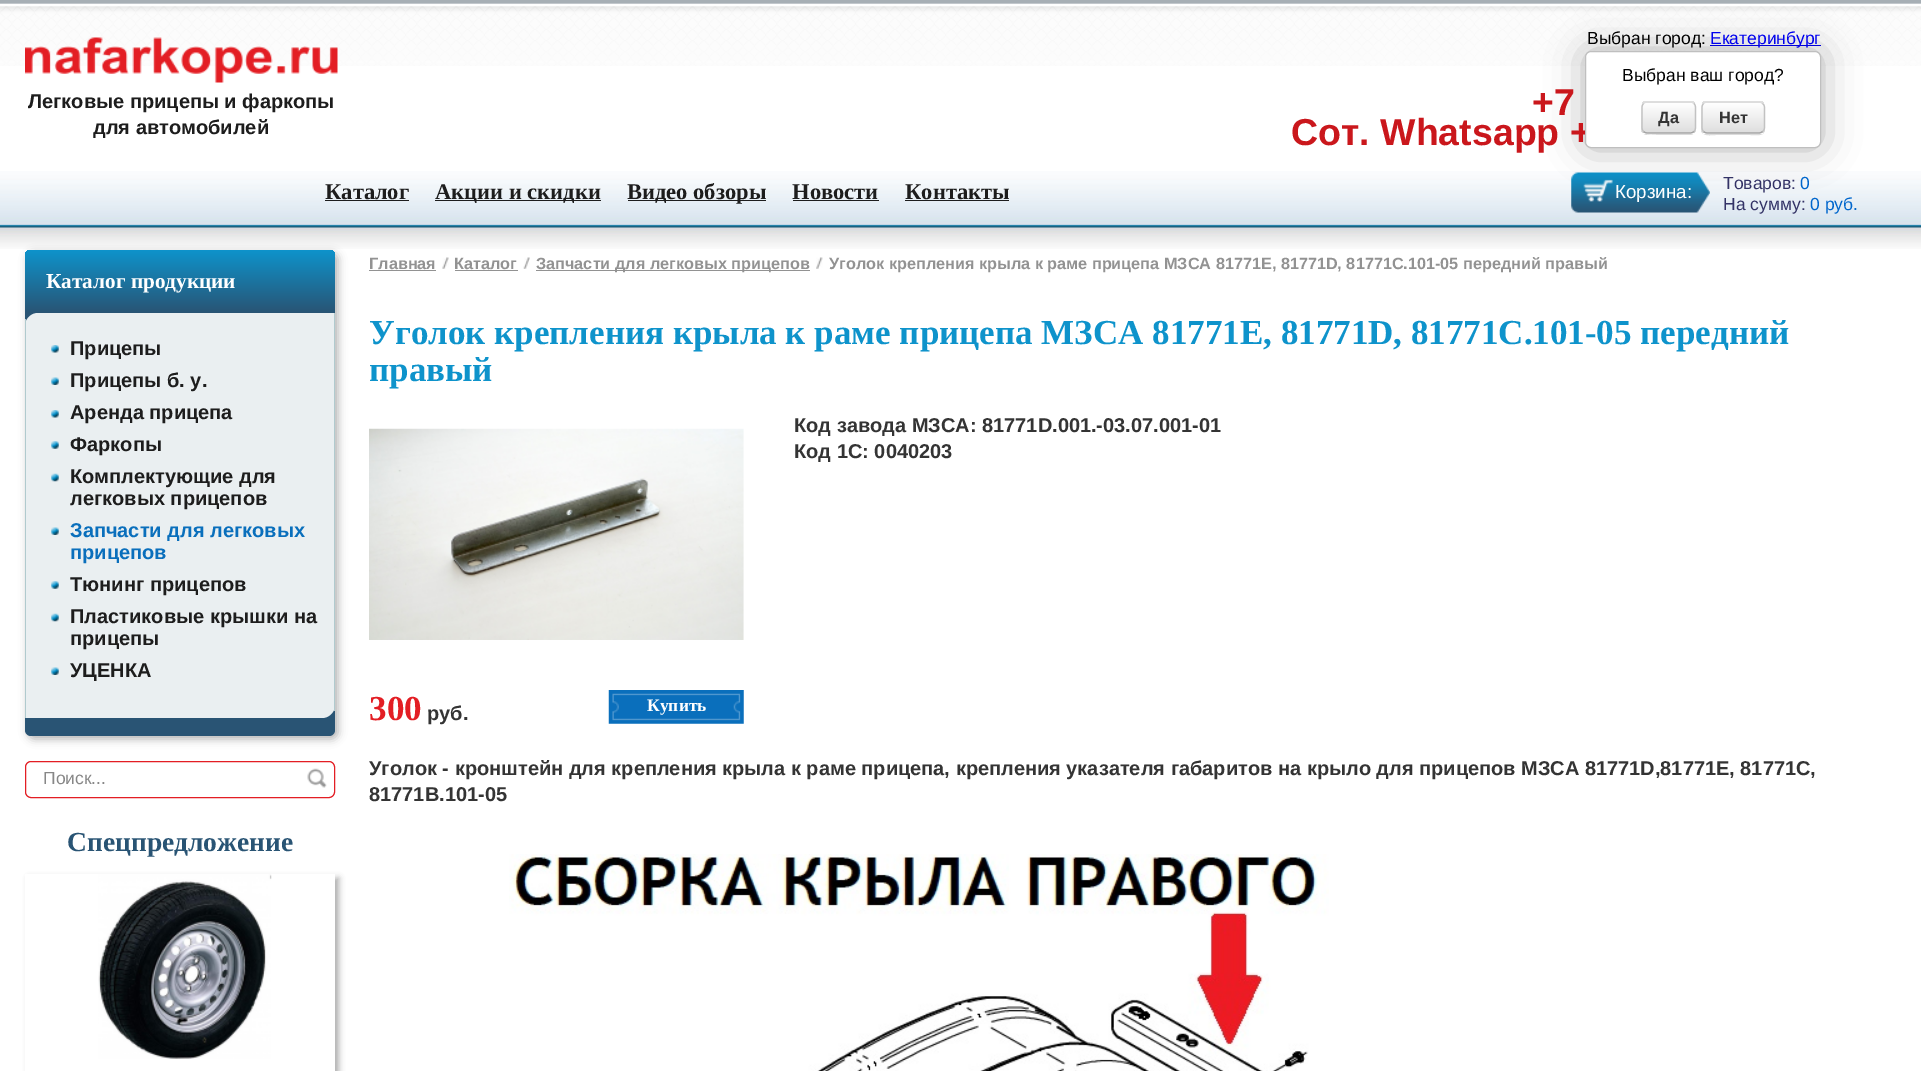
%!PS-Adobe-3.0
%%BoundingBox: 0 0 1921 1071
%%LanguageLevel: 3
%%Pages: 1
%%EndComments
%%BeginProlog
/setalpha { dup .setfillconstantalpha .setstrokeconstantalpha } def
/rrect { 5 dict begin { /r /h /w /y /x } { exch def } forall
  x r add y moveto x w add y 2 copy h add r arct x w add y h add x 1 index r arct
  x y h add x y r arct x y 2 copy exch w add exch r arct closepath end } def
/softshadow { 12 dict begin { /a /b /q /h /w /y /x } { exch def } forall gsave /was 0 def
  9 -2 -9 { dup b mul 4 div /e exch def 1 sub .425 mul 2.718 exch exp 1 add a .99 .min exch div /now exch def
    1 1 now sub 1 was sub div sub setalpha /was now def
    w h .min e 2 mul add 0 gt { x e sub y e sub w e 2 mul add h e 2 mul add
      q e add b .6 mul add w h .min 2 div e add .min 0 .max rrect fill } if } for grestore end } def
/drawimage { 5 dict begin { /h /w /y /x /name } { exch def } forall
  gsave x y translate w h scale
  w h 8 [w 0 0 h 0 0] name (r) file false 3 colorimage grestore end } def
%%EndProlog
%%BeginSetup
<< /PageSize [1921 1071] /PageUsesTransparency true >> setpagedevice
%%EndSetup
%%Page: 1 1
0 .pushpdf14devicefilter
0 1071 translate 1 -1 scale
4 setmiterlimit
1 setgray
0 0 1921 1071 rectfill
(images/1.raw) 0 0 1921 66 drawimage
(images/2.raw) 0 171 1921 78 drawimage
(images/3.raw) 25 37 313 46 drawimage
0 0 0.933 setrgbcolor
1710 45 111 1 rectfill
(images/4.raw) 1571 172 139 41 drawimage
0 setgray
1585 51 236 97 6 19 0.3 softshadow
0.114 setgray
325 200 84 1 rectfill
435 200 166 1 rectfill
628 200 138 1 rectfill
793 200 86 1 rectfill
905 200 104 1 rectfill
0 setgray
28 253 310 486 6 4.5 0.3 softshadow
0.161 0.329 0.455 setrgbcolor
25 250 310 486 6 rrect fill
gsave newpath 31 250 moveto 329 250 lineto 332.5 250 335 252.5 335 256 curveto 335 313 lineto 25 313 lineto 25 256 lineto 25 252.5 27.5 250 31 250 curveto closepath clip newpath
<< /ShadingType 2 /ColorSpace /DeviceRGB /Coords [180 250 180 313] /Extend [true true] /Function << /FunctionType 2 /Domain [0 1] /C0 [0.055 0.576 0.796] /C1 [0.161 0.329 0.455] /N 1 >> >> shfill grestore
0.918 0.937 0.945 setrgbcolor
newpath 38 313 moveto 335 313 lineto 335 705 lineto 335 712 329 718 322 718 curveto 25 718 lineto 25 326 lineto 25 319 31 313 38 313 curveto closepath fill
0.69 0.792 0.808 setrgbcolor
334 313 1 398 rectfill
25 319 1 399 rectfill
(images/5.raw) 51 345 8 8 drawimage
(images/6.raw) 51 377 8 8 drawimage
(images/5.raw) 51 410 8 8 drawimage
(images/7.raw) 51 441 8 8 drawimage
(images/8.raw) 51 473 8 9 drawimage
(images/6.raw) 51 527 8 8 drawimage
(images/7.raw) 51 581 8 8 drawimage
(images/8.raw) 51 613 8 9 drawimage
(images/6.raw) 51 667 8 8 drawimage
0.89 0.118 0.141 setrgbcolor
25.5 761.5 309 36 5.5 rrect stroke
(images/9.raw) 307 768 20 20 drawimage
gsave
newpath 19 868 moveto 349 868 lineto 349 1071 lineto 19 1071 lineto closepath 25 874 moveto 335 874 lineto 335 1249 lineto 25 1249 lineto closepath eoclip newpath
0 setgray
29 878 310 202 0 3 0.31 softshadow
grestore
(images/10.raw) 98 874 174 185 drawimage
0.573 setgray
369 270 67 1 rectfill
(images/11.raw) 442 257 7 12 drawimage
455 270 63 1 rectfill
(images/12.raw) 523 257 7 12 drawimage
536 270 274 1 rectfill
(images/13.raw) 816 257 7 12 drawimage
(images/14.raw) 369 428 375 212 drawimage
(images/15.raw) 608 690 136 34 drawimage
(images/16.raw) 509 854 820 217 drawimage
/LiberationSans-Regular [17.5 0 0 -17.5 0 0] selectfont
0 setgray
1587 44 moveto (Выбран город:) show
0 0 0.933 setrgbcolor
1710 44 moveto (Екатеринбург) show
/LiberationSans-Bold [20 0 0 -20 0 0] selectfont
0.114 setgray
28 108 moveto (Легковые прицепы и фаркопы) show
93 134 moveto (для автомобилей) show
/LiberationSans-Bold [37.5 0 0 -37.5 0 0] selectfont
0.792 0.09 0.11 setrgbcolor
1532 115 moveto (+7) show
1291 145 moveto (Сот. Whatsapp +) show
1 setgray
1585.5 51.5 235 96 5.5 rrect gsave fill grestore
0.749 setgray
stroke
/LiberationSans-Regular [17.5 0 0 -17.5 0 0] selectfont
0 setgray
1622 81 moveto (Выбран ваш город?) show
0.859 setgray
newpath 1701 107 moveto 1701 130 lineto 1702 137 1711 135 1716 135 curveto 1750 135 lineto 1758 135 1765 137 1765 128 curveto 1765 135 1755 134 1750 134 curveto 1716 134 lineto 1706 134 1701 135 1701 124 curveto closepath fill
gsave
1701 101 64 33 6 rrect clip newpath
gsave newpath 1701 103 moveto 1765 103 lineto 1765 133 lineto 1701 133 lineto closepath clip newpath
<< /ShadingType 2 /ColorSpace /DeviceRGB /Coords [1733 103 1733 133] /Extend [true true] /Function << /FunctionType 2 /Domain [0 1] /C0 [1 1 1] /C1 [0.871 0.871 0.871] /N 1 >> >> shfill grestore
grestore
/LiberationSans-Bold [16.25 0 0 -16.25 0 0] selectfont
0.204 setgray
1719 123 moveto (Нет) show
gsave
1701 101 64 33 6 rrect clip newpath
gsave newpath 1701 101 moveto 1765 101 lineto 1765 103 lineto 1701 103 lineto closepath clip newpath
<< /ShadingType 2 /ColorSpace /DeviceRGB /Coords [1733 73 1733 103] /Extend [true true] /Function << /FunctionType 2 /Domain [0 1] /C0 [1 1 1] /C1 [0.871 0.871 0.871] /N 1 >> >> shfill grestore
grestore
0.867 setgray
1.2 setlinewidth
newpath 1703.5 103.5 moveto 1704.5 102.5 1706 102 1707.5 102 curveto 1759 102 lineto 1760 102 1761.5 102.5 1762.5 103.5 curveto stroke
0.761 setgray
newpath 1762.5 103.5 moveto 1764 104.5 1764.5 106 1764.5 107.5 curveto 1764.5 127.5 lineto 1764.5 129 1764 130.5 1762.5 131.5 curveto stroke
gsave
1701 101 64 33 6 rrect clip newpath
gsave newpath 1701 133 moveto 1765 133 lineto 1765 134 lineto 1701 134 lineto closepath clip newpath
<< /ShadingType 2 /ColorSpace /DeviceRGB /Coords [1733 133 1733 163] /Extend [true true] /Function << /FunctionType 2 /Domain [0 1] /C0 [1 1 1] /C1 [0.871 0.871 0.871] /N 1 >> >> shfill grestore
grestore
0.639 setgray
newpath 1762.5 131.5 moveto 1761.5 132.5 1760 133 1759 133 curveto 1707.5 133 lineto 1706 133 1704.5 132.5 1703.5 131.5 curveto stroke
0.761 setgray
newpath 1703.5 131.5 moveto 1702.5 130.5 1702 129 1702 127.5 curveto 1702 107.5 lineto 1702 106 1702.5 104.5 1703.5 103.5 curveto stroke
0.859 setgray
newpath 1641 107 moveto 1641 129 lineto 1641 132 1644 135 1647 135 curveto 1690 135 lineto 1693 135 1696 132 1696 129 curveto 1694 135 1687 134 1683 134 curveto 1662 134 lineto 1650 134 1641 138 1641 124 curveto closepath fill
gsave
1641 101 55 33 6 rrect clip newpath
gsave newpath 1641 103 moveto 1696 103 lineto 1696 133 lineto 1641 133 lineto closepath clip newpath
<< /ShadingType 2 /ColorSpace /DeviceRGB /Coords [1669 103 1669 133] /Extend [true true] /Function << /FunctionType 2 /Domain [0 1] /C0 [1 1 1] /C1 [0.871 0.871 0.871] /N 1 >> >> shfill grestore
grestore
0.204 setgray
1658 123 moveto (Да) show
gsave
1641 101 55 33 6 rrect clip newpath
gsave newpath 1641 101 moveto 1696 101 lineto 1696 103 lineto 1641 103 lineto closepath clip newpath
<< /ShadingType 2 /ColorSpace /DeviceRGB /Coords [1669 73 1669 103] /Extend [true true] /Function << /FunctionType 2 /Domain [0 1] /C0 [1 1 1] /C1 [0.871 0.871 0.871] /N 1 >> >> shfill grestore
grestore
0.867 setgray
newpath 1643.5 103.5 moveto 1644.5 102.5 1646 102 1647.5 102 curveto 1690 102 lineto 1691.5 102 1693 102.5 1694 103.5 curveto stroke
0.761 setgray
newpath 1694 103.5 moveto 1695 104.5 1695.5 106 1695.5 107.5 curveto 1695.5 127.5 lineto 1695.5 129 1695 130.5 1694 131.5 curveto stroke
gsave
1641 101 55 33 6 rrect clip newpath
gsave newpath 1641 133 moveto 1696 133 lineto 1696 134 lineto 1641 134 lineto closepath clip newpath
<< /ShadingType 2 /ColorSpace /DeviceRGB /Coords [1669 133 1669 163] /Extend [true true] /Function << /FunctionType 2 /Domain [0 1] /C0 [1 1 1] /C1 [0.871 0.871 0.871] /N 1 >> >> shfill grestore
grestore
0.639 setgray
newpath 1694 131.5 moveto 1693 132.5 1691.5 133 1690 133 curveto 1647.5 133 lineto 1646 133 1644.5 132.5 1643.5 131.5 curveto stroke
0.761 setgray
newpath 1643.5 131.5 moveto 1642.5 130.5 1642 129 1642 127.5 curveto 1642 107.5 lineto 1642 106 1642.5 104.5 1643.5 103.5 curveto stroke
/LiberationSerif-Bold [22.5 0 0 -22.5 0 0] selectfont
0.114 setgray
325 199 moveto (Каталог) show
435 199 moveto (Акции и скидки) show
627 199 moveto (Видео обзоры) show
792 199 moveto (Новости) show
905 199 moveto (Контакты) show
/LiberationSans-Regular [17.5 0 0 -17.5 0 0] selectfont
0.2 0.2 0.4 setrgbcolor
1723 189 moveto (Товаров:) show
0 0.4 0.8 setrgbcolor
1800 189 moveto (0) show
/LiberationSans-Regular [18.75 0 0 -18.75 0 0] selectfont
1 setgray
1615 198 moveto (Корзина:) show
/LiberationSans-Regular [17.5 0 0 -17.5 0 0] selectfont
0.2 0.2 0.4 setrgbcolor
1723 210 moveto (На сумму:) show
0 0.4 0.8 setrgbcolor
1810 210 moveto (0 руб.) show
/LiberationSerif-Bold [21.25 0 0 -21.25 0 0] selectfont
1 setgray
46 288 moveto (Каталог продукции) show
/LiberationSans-Bold [20 0 0 -20 0 0] selectfont
0.114 setgray
70 355 moveto (Прицепы) show
70 387 moveto (Прицепы б. у.) show
70 419 moveto (Аренда прицепа) show
70 451 moveto (Фаркопы) show
70 483 moveto (Комплектующие для) show
70 505 moveto (легковых прицепов) show
0.039 0.435 0.737 setrgbcolor
70 537 moveto (Запчасти для легковых) show
70 559 moveto (прицепов) show
0.114 setgray
70 591 moveto (Тюнинг прицепов) show
70 623 moveto (Пластиковые крышки на) show
70 645 moveto (прицепы) show
70 677 moveto (УЦЕНКА) show
/LiberationSans-Regular [17.5 0 0 -17.5 0 0] selectfont
0.529 setgray
43 784 moveto (Поиск...) show
/LiberationSerif-Bold [27.5 0 0 -27.5 0 0] selectfont
0.161 0.329 0.455 setrgbcolor
67 851 moveto (Спецпредложение) show
/LiberationSans-Bold [16.25 0 0 -16.25 0 0] selectfont
0.573 setgray
369 269 moveto (Главная) show
454 269 moveto (Каталог) show
536 269 moveto (Запчасти для легковых прицепов) show
829 269 moveto (Уголок крепления крыла к раме прицепа МЗСА 81771Е, 81771D, 81771С.101-05 передний правый) show
/LiberationSerif-Bold [35 0 0 -35 0 0] selectfont
0.055 0.576 0.796 setrgbcolor
369 344 moveto (Уголок крепления крыла к раме прицепа МЗСА 81771Е, 81771D, 81771С.101-05 передний) show
369 381 moveto (правый) show
/LiberationSans-Bold [20 0 0 -20 0 0] selectfont
0.204 setgray
794 432 moveto (Код завода МЗСА: 81771D.001.-03.07.001-01) show
794 458 moveto (Код 1С: 0040203) show
/LiberationSerif-Bold [35 0 0 -35 0 0] selectfont
0.89 0.118 0.141 setrgbcolor
369 720 moveto (300) show
/LiberationSans-Bold [20 0 0 -20 0 0] selectfont
0.204 setgray
427 720 moveto (руб.) show
/LiberationSerif-Bold [17.5 0 0 -17.5 0 0] selectfont
1 setgray
647 711 moveto (Купить) show
/LiberationSans-Bold [20 0 0 -20 0 0] selectfont
0.204 setgray
369 775 moveto (Уголок - кронштейн для крепления крыла к раме прицепа, крепления указателя габаритов на крыло для прицепов МЗСА 81771D,81771E, 81771С,) show
369 801 moveto (81771B.101-05) show
.poppdf14devicefilter showpage
%%EOF
